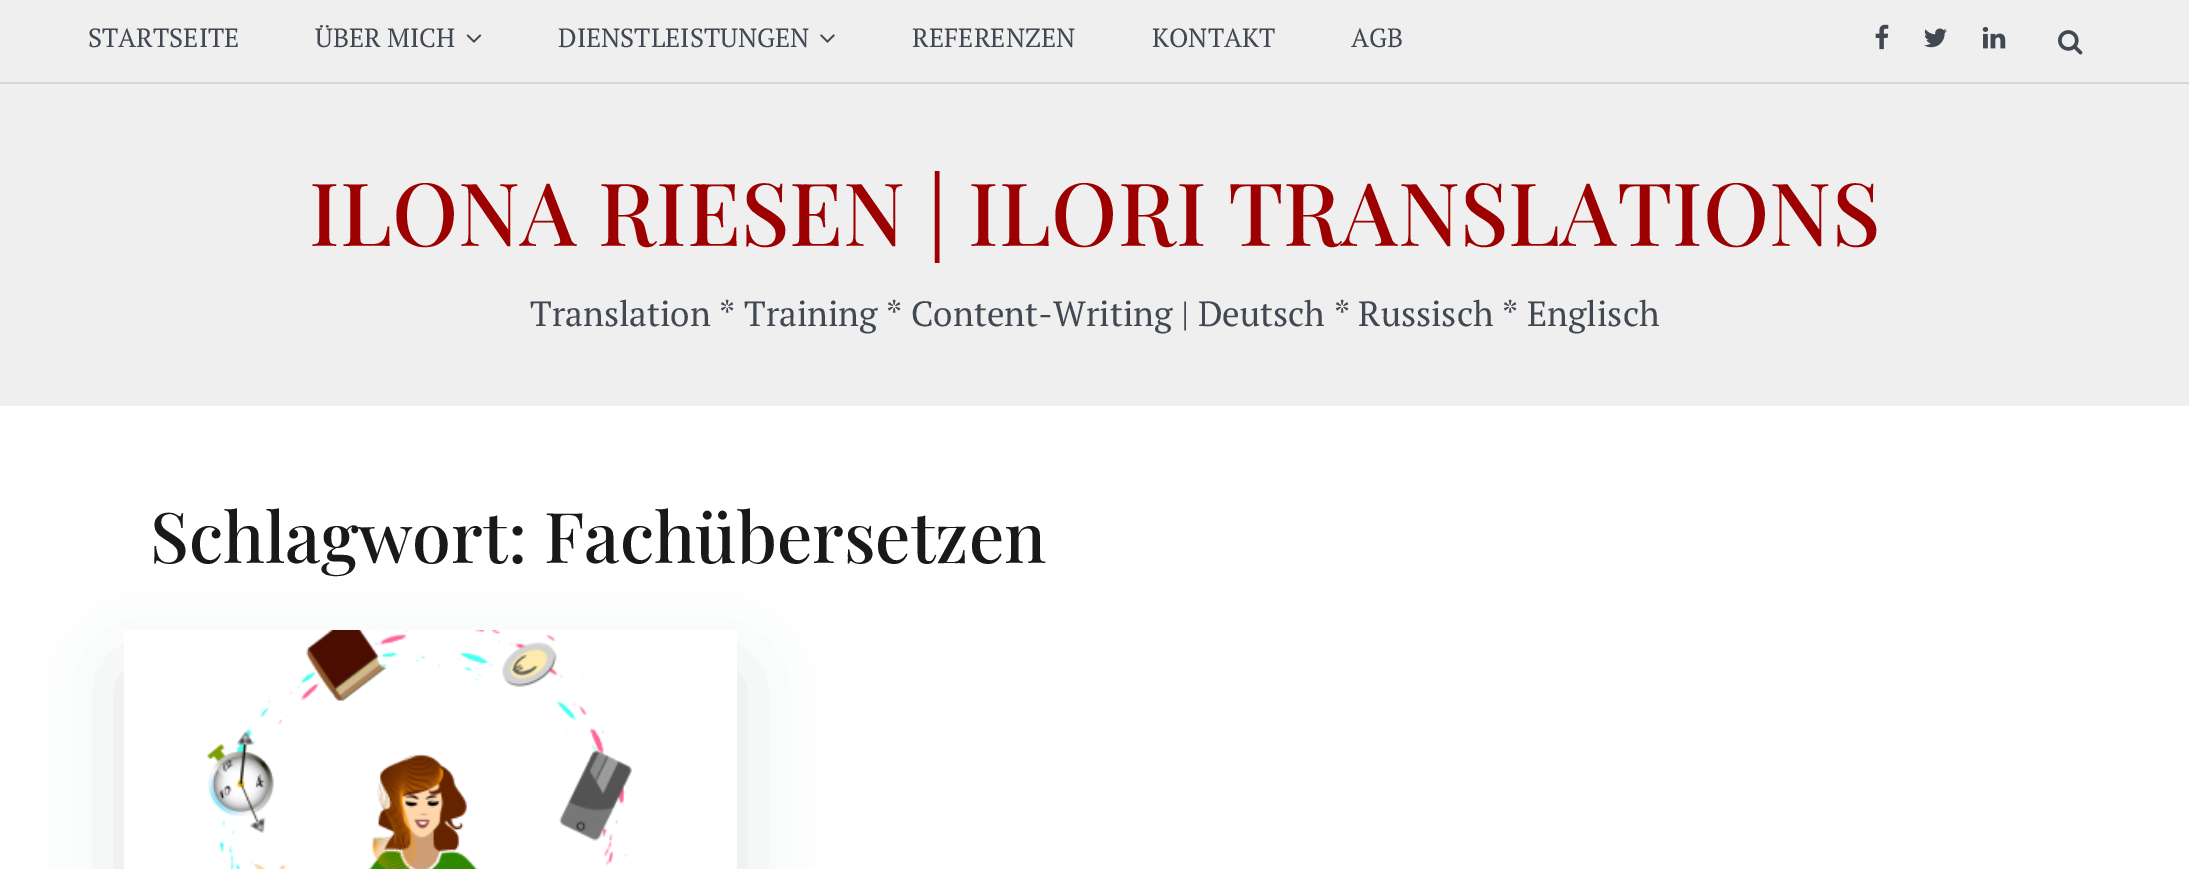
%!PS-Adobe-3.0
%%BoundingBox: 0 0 2189 869
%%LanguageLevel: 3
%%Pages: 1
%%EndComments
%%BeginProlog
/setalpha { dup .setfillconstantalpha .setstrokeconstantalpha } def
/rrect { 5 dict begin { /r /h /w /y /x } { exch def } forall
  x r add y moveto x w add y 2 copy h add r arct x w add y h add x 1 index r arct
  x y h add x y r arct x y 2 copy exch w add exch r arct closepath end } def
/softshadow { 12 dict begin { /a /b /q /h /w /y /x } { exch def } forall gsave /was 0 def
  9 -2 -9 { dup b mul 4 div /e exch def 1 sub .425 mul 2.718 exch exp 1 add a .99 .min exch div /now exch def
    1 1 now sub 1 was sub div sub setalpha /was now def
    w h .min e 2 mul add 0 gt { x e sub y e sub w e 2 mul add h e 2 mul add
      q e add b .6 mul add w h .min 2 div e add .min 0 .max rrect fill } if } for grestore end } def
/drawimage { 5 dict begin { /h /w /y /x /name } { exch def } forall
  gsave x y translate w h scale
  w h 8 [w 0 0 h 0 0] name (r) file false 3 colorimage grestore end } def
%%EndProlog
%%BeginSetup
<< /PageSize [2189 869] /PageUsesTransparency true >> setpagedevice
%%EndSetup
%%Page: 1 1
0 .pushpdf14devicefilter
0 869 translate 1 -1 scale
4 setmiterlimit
1 setgray
0 0 2189 869 rectfill
0.937 setgray
0 0 2189 406 rectfill
0.843 setgray
0 82 2189 2 rectfill
(images/1.raw) 466 34 16 9 drawimage
(images/2.raw) 820 34 15 9 drawimage
(images/3.raw) 1875 24 14 26 drawimage
(images/4.raw) 1924 28 23 20 drawimage
(images/5.raw) 1982 26 24 23 drawimage
(images/6.raw) 2058 30 25 25 drawimage
gsave
newpath 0 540 moveto 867 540 lineto 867 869 lineto 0 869 lineto closepath 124 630 moveto 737 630 lineto 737 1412 lineto 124 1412 lineto closepath eoclip newpath
0.239 0.322 0.376 setrgbcolor
124 670 613 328 0 43 0.15 softshadow
grestore
(images/7.raw) 207 630 425 239 drawimage
/PTSerif-Regular [26.25 0 0 -26.25 0 0] selectfont
0.259 0.282 0.318 setrgbcolor
88 47 moveto (STARTSEITE) show
315 47 moveto (ÜBER MICH) show
558 47 moveto (DIENSTLEISTUNGEN) show
912 47 moveto (REFERENZEN) show
1152 47 moveto (KONTAKT) show
1351 47 moveto (AGB) show
/PlayfairDisplay-Medium [87.5 0 0 -87.5 0 0] selectfont
0.616 0 0 setrgbcolor
309 246 moveto (ILONA RIESEN | ILORI TRANSLATIONS) show
/PTSerif-Regular [35 0 0 -35 0 0] selectfont
0.259 0.282 0.318 setrgbcolor
530 326 moveto (Translation * Training * Content-Writing | Deutsch * Russisch * Englisch) show
/PlayfairDisplay-Medium [70 0 0 -70 0 0] selectfont
0.098 setgray
150 563 moveto (Schlagwort: Fachübersetzen) show
.poppdf14devicefilter showpage
%%EOF
